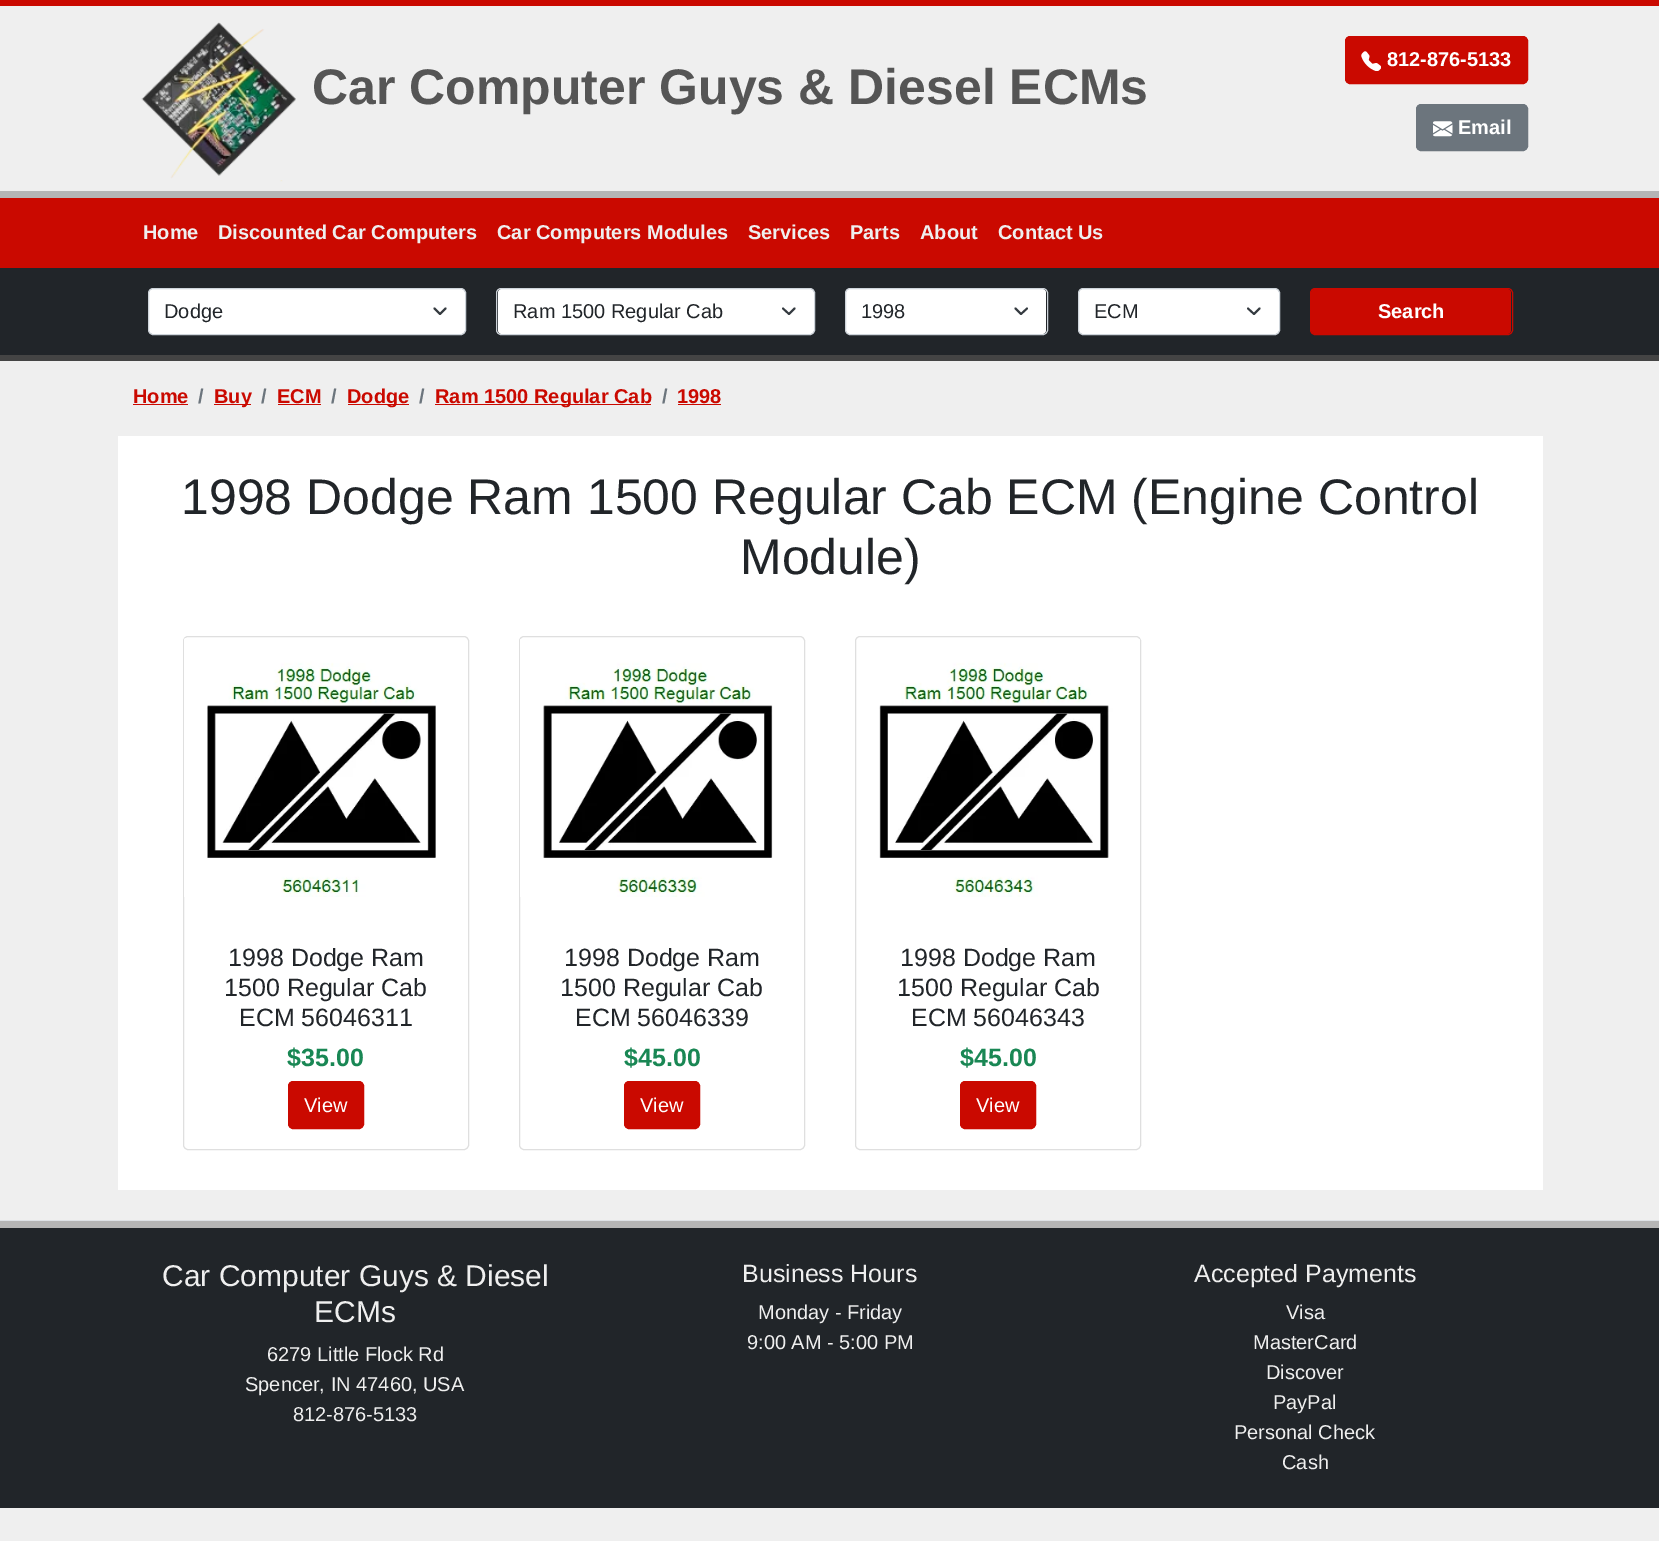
%!PS-Adobe-3.0
%%BoundingBox: 0 0 1659 1541
%%LanguageLevel: 3
%%Pages: 1
%%EndComments
%%BeginProlog
/rrect { 5 dict begin { /r /h /w /y /x } { exch def } forall
  x r add y moveto x w add y 2 copy h add r arct x w add y h add x 1 index r arct
  x y h add x y r arct x y 2 copy exch w add exch r arct closepath end } def
/drawimage { 5 dict begin { /h /w /y /x /name } { exch def } forall
  gsave x y translate w h scale
  w h 8 [w 0 0 h 0 0] name (r) file false 3 colorimage grestore end } def
%%EndProlog
%%BeginSetup
<< /PageSize [1659 1541] >> setpagedevice
%%EndSetup
%%Page: 1 1
0 1541 translate 1 -1 scale
4 setmiterlimit
0.937 setgray
0 0 1659 1541 rectfill
0.792 0.035 0 setrgbcolor
0 0 1659 6 rectfill
(images/1.raw) 141 22 155 160 drawimage
1345.5 36.5 182 47 4.5 rrect gsave fill grestore
stroke
(images/2.raw) 1361 51 20 20 drawimage
0.424 0.459 0.49 setrgbcolor
1416.5 104.5 111 46 4.5 rrect gsave fill grestore
stroke
(images/3.raw) 1433 121 20 16 drawimage
0.792 0.035 0 setrgbcolor
0 198 1659 70 rectfill
0.71 setgray
0 191 1659 7 rectfill
0.129 0.145 0.161 setrgbcolor
0 268 1659 87 rectfill
0.267 setgray
0 355 1659 6 rectfill
1 setgray
149 289 316 45 4 rrect fill
0.204 0.227 0.251 setrgbcolor
1.9 setlinewidth
1 setlinecap
1 setlinejoin
newpath 434.5 308.5 moveto 440 314 lineto 445.5 308.5 lineto stroke
0.808 0.831 0.855 setrgbcolor
1 setlinewidth
0 setlinecap
0 setlinejoin
148.5 288.5 317 46 4.5 rrect stroke
1 setgray
498 289 316 45 4 rrect fill
0.204 0.227 0.251 setrgbcolor
1.9 setlinewidth
1 setlinecap
1 setlinejoin
newpath 783 308.5 moveto 789 314 lineto 794.5 308.5 lineto stroke
0.808 0.831 0.855 setrgbcolor
1 setlinewidth
0 setlinecap
0 setlinejoin
496.5 288.5 318 46 4.5 rrect stroke
1 setgray
846 289 200 45 4 rrect fill
0.204 0.227 0.251 setrgbcolor
1.9 setlinewidth
1 setlinecap
1 setlinejoin
newpath 1015.5 308.5 moveto 1021 314 lineto 1027 308.5 lineto stroke
0.808 0.831 0.855 setrgbcolor
1 setlinewidth
0 setlinecap
0 setlinejoin
845.5 288.5 202 46 4.5 rrect stroke
1 setgray
1079 289 200 45 4 rrect fill
0.204 0.227 0.251 setrgbcolor
1.9 setlinewidth
1 setlinecap
1 setlinejoin
newpath 1248 308.5 moveto 1254 314 lineto 1259.5 308.5 lineto stroke
0.808 0.831 0.855 setrgbcolor
1 setlinewidth
0 setlinecap
0 setlinejoin
1078.5 288.5 201 46 4.5 rrect stroke
0.792 0.035 0 setrgbcolor
1311 289 200 45 4 rrect fill
1310.5 288.5 202 46 4.5 rrect stroke
133 404 55 1 rectfill
214 404 37 1 rectfill
278 404 43 1 rectfill
348 404 61 1 rectfill
435 404 216 1 rectfill
678 404 43 1 rectfill
1 setgray
118 436 1425 754 rectfill
0.875 setgray
183.5 636.5 285 513 4.5 rrect stroke
(images/4.raw) 184 638 252 259 drawimage
0.792 0.035 0 setrgbcolor
288.5 1081.5 75 47 4.5 rrect gsave fill grestore
stroke
0.875 setgray
519.5 636.5 285 513 4.5 rrect stroke
(images/5.raw) 520 639 253 258 drawimage
0.792 0.035 0 setrgbcolor
624.5 1081.5 75 47 4.5 rrect gsave fill grestore
stroke
0.875 setgray
855.5 636.5 285 513 4.5 rrect stroke
(images/6.raw) 879 639 261 258 drawimage
0.792 0.035 0 setrgbcolor
960.5 1081.5 75 47 4.5 rrect gsave fill grestore
stroke
0.871 0.886 0.902 setrgbcolor
0 1220 1659 1 rectfill
0.129 0.145 0.161 setrgbcolor
0 1228 1659 280 rectfill
0.71 setgray
0 1221 1659 7 rectfill
/LiberationSans-Bold [50 0 0 -50 0 0] selectfont
0.333 setgray
312 104 moveto (Car Computer Guys & Diesel ECMs) show
/LiberationSans-Bold [20 0 0 -20 0 0] selectfont
1 setgray
1387 66 moveto (812-876-5133) show
1458 134 moveto (Email) show
0.937 setgray
143 239 moveto (Home) show
218 239 moveto (Discounted Car Computers) show
497 239 moveto (Car Computers Modules) show
748 239 moveto (Services) show
850 239 moveto (Parts) show
920 239 moveto (About) show
998 239 moveto (Contact Us) show
/LiberationSans-Regular [20 0 0 -20 0 0] selectfont
0.129 0.145 0.161 setrgbcolor
164 318 moveto (Dodge) show
513 318 moveto (Ram 1500 Regular Cab) show
861 318 moveto (1998) show
1094 318 moveto (ECM) show
/LiberationSans-Bold [20 0 0 -20 0 0] selectfont
1 setgray
1378 318 moveto (Search) show
0.792 0.035 0 setrgbcolor
133 403 moveto (Home) show
0.424 0.459 0.49 setrgbcolor
198 403 moveto (/) show
0.792 0.035 0 setrgbcolor
214 403 moveto (Buy) show
0.424 0.459 0.49 setrgbcolor
261 403 moveto (/) show
0.792 0.035 0 setrgbcolor
277 403 moveto (ECM) show
0.424 0.459 0.49 setrgbcolor
331 403 moveto (/) show
0.792 0.035 0 setrgbcolor
347 403 moveto (Dodge) show
0.424 0.459 0.49 setrgbcolor
419 403 moveto (/) show
0.792 0.035 0 setrgbcolor
435 403 moveto (Ram 1500 Regular Cab) show
0.424 0.459 0.49 setrgbcolor
662 403 moveto (/) show
0.792 0.035 0 setrgbcolor
677 403 moveto (1998) show
/LiberationSans-Regular [50 0 0 -50 0 0] selectfont
0.129 0.145 0.161 setrgbcolor
181 514 moveto (1998 Dodge Ram 1500 Regular Cab ECM \(Engine Control) show
740 574 moveto (Module\)) show
/LiberationSans-Regular [25 0 0 -25 0 0] selectfont
228 966 moveto (1998 Dodge Ram) show
224 996 moveto (1500 Regular Cab) show
239 1026 moveto (ECM 56046311) show
/LiberationSans-Bold [25 0 0 -25 0 0] selectfont
0.098 0.529 0.329 setrgbcolor
287 1066 moveto ($35.00) show
/LiberationSans-Regular [20 0 0 -20 0 0] selectfont
1 setgray
304 1112 moveto (View) show
/LiberationSans-Regular [25 0 0 -25 0 0] selectfont
0.129 0.145 0.161 setrgbcolor
564 966 moveto (1998 Dodge Ram) show
560 996 moveto (1500 Regular Cab) show
575 1026 moveto (ECM 56046339) show
/LiberationSans-Bold [25 0 0 -25 0 0] selectfont
0.098 0.529 0.329 setrgbcolor
624 1066 moveto ($45.00) show
/LiberationSans-Regular [20 0 0 -20 0 0] selectfont
1 setgray
640 1112 moveto (View) show
/LiberationSans-Regular [25 0 0 -25 0 0] selectfont
0.129 0.145 0.161 setrgbcolor
900 966 moveto (1998 Dodge Ram) show
897 996 moveto (1500 Regular Cab) show
911 1026 moveto (ECM 56046343) show
/LiberationSans-Bold [25 0 0 -25 0 0] selectfont
0.098 0.529 0.329 setrgbcolor
960 1066 moveto ($45.00) show
/LiberationSans-Regular [20 0 0 -20 0 0] selectfont
1 setgray
976 1112 moveto (View) show
/LiberationSans-Regular [30 0 0 -30 0 0] selectfont
0.937 setgray
162 1286 moveto (Car Computer Guys & Diesel) show
314 1322 moveto (ECMs) show
/LiberationSans-Regular [20 0 0 -20 0 0] selectfont
267 1361 moveto (6279 Little Flock Rd) show
245 1391 moveto (Spencer, IN 47460, USA) show
293 1421 moveto (812-876-5133) show
/LiberationSans-Regular [25 0 0 -25 0 0] selectfont
742 1282 moveto (Business Hours) show
/LiberationSans-Regular [20 0 0 -20 0 0] selectfont
758 1319 moveto (Monday - Friday) show
747 1349 moveto (9:00 AM - 5:00 PM) show
/LiberationSans-Regular [25 0 0 -25 0 0] selectfont
1194 1282 moveto (Accepted Payments) show
/LiberationSans-Regular [20 0 0 -20 0 0] selectfont
1286 1319 moveto (Visa) show
1253 1349 moveto (MasterCard) show
1266 1379 moveto (Discover) show
1273 1409 moveto (PayPal) show
1234 1439 moveto (Personal Check) show
1282 1469 moveto (Cash) show
showpage
%%EOF
